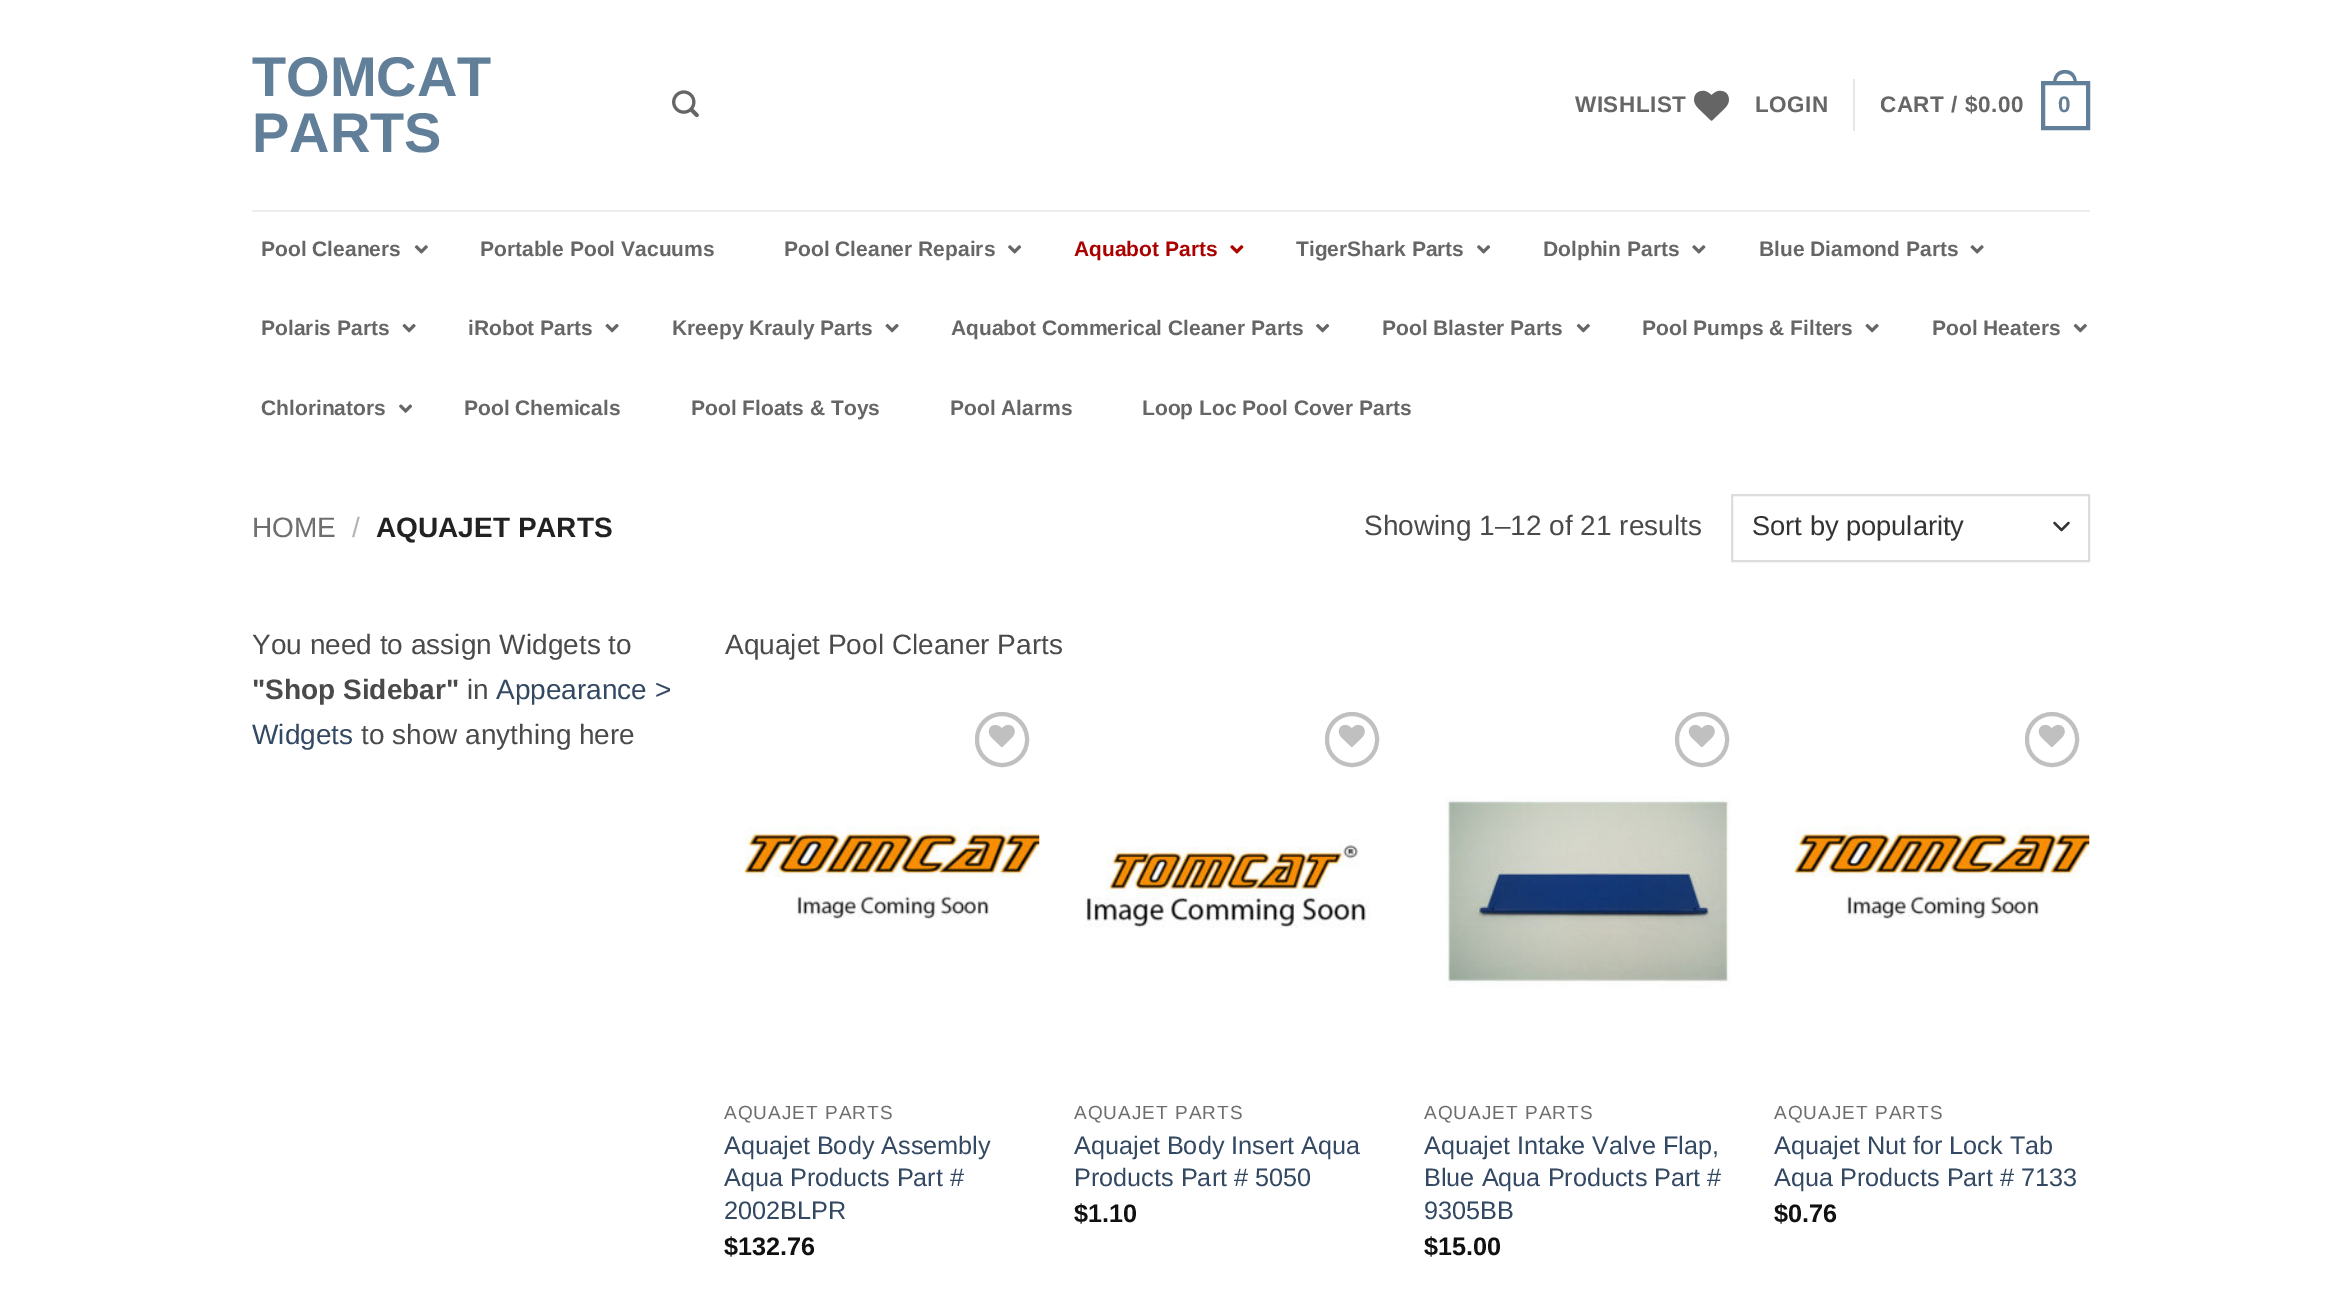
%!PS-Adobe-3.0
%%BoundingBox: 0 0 2341 1301
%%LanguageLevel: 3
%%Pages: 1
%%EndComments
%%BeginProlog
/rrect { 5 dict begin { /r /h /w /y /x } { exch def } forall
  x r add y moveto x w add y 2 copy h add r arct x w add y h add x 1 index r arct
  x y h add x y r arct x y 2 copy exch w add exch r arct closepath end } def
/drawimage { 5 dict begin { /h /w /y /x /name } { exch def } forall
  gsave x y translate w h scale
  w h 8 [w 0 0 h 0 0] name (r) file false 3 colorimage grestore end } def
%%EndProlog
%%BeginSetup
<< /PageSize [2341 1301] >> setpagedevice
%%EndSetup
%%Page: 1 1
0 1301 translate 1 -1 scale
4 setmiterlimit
1 setgray
0 0 2341 1301 rectfill
(images/1.raw) 672 90 27 28 drawimage
(images/2.raw) 1694 90 35 31 drawimage
0.902 setgray
1853 79 2 52 rectfill
0.384 0.498 0.604 setrgbcolor
4 setlinewidth
2043 83 45 45 rectstroke
newpath 2065 70 moveto 2073.5 70 2077 76.5 2077 84 curveto 2053 84 lineto 2053 76.5 2056.5 70 2065 70 curveto closepath 2065 73.5 moveto 2071.5 73.5 2074 78.5 2074 84 curveto 2056 84 lineto 2056 78.5 2058.5 73.5 2065 73.5 curveto closepath eofill
0.929 setgray
252 210 1838 2 rectfill
(images/3.raw) 414 245 14 9 drawimage
(images/4.raw) 1008 245 14 9 drawimage
(images/5.raw) 1230 245 14 9 drawimage
(images/4.raw) 1477 245 14 9 drawimage
(images/6.raw) 1692 245 14 9 drawimage
(images/7.raw) 1970 245 14 9 drawimage
(images/8.raw) 402 323 14 10 drawimage
(images/8.raw) 605 323 14 10 drawimage
(images/8.raw) 885 323 14 10 drawimage
(images/9.raw) 1316 323 14 10 drawimage
(images/10.raw) 1576 323 14 10 drawimage
(images/8.raw) 1865 323 14 10 drawimage
(images/10.raw) 2073 323 14 10 drawimage
(images/11.raw) 399 404 14 9 drawimage
0.2 setgray
2.3 setlinewidth
1 setlinecap
1 setlinejoin
newpath 2054.5 523 moveto 2061.5 530 lineto 2068.5 523 lineto stroke
0.867 setgray
2 setlinewidth
0 setlinecap
0 setlinejoin
1732 495 357 66 rectstroke
0.753 setgray
4 setlinewidth
977 714 50 51 25 rrect stroke
(images/12.raw) 988 724 27 24 drawimage
(images/13.raw) 744 826 296 93 drawimage
1327 714 50 51 25 rrect stroke
(images/12.raw) 1338 724 27 24 drawimage
(images/14.raw) 1085 839 285 90 drawimage
1677 714 50 51 25 rrect stroke
(images/12.raw) 1688 724 27 24 drawimage
(images/15.raw) 1445 796 286 192 drawimage
2027 714 50 51 25 rrect stroke
(images/12.raw) 2038 724 27 24 drawimage
(images/13.raw) 1794 826 296 93 drawimage
/LiberationSans-Bold [56 0 0 -56 0 0] selectfont
0.384 0.498 0.604 setrgbcolor
252 96 moveto (TOMCAT) show
252 152 moveto (PARTS) show
/LiberationSans-Bold [22.5 0 0 -22.5 0 0] selectfont
0.4 setgray
1575 112 moveto 0.5 0 (WISHLIST) ashow
1755 112 moveto 0.5 0 (LOGIN) ashow
1880 112 moveto 0.5 0 (CART / $0.00) ashow
0.384 0.498 0.604 setrgbcolor
2058 112 moveto 0.5 0 (0) ashow
/LiberationSans-Bold [21 0 0 -21 0 0] selectfont
0.4 setgray
261 256 moveto (Pool Cleaners) show
480 256 moveto (Portable Pool Vacuums) show
784 256 moveto (Pool Cleaner Repairs) show
0.667 0 0 setrgbcolor
1074 256 moveto (Aquabot Parts) show
0.4 setgray
1296 256 moveto (TigerShark Parts) show
1543 256 moveto (Dolphin Parts) show
1759 256 moveto (Blue Diamond Parts) show
261 335 moveto (Polaris Parts) show
468 335 moveto (iRobot Parts) show
672 335 moveto (Kreepy Krauly Parts) show
951 335 moveto (Aquabot Commerical Cleaner Parts) show
1382 335 moveto (Pool Blaster Parts) show
1642 335 moveto (Pool Pumps & Filters) show
1932 335 moveto (Pool Heaters) show
261 415 moveto (Chlorinators) show
464 415 moveto (Pool Chemicals) show
691 415 moveto (Pool Floats & Toys) show
950 415 moveto (Pool Alarms) show
1142 415 moveto (Loop Loc Pool Cover Parts) show
/LiberationSans-Regular [28 0 0 -28 0 0] selectfont
0.431 setgray
252 537 moveto (HOME) show
0.698 setgray
352 537 moveto (/) show
/LiberationSans-Bold [28 0 0 -28 0 0] selectfont
0.133 setgray
376 537 moveto (AQUAJET PARTS) show
/LiberationSans-Regular [28 0 0 -28 0 0] selectfont
0.29 setgray
1364 535 moveto (Showing 1–12 of 21 results) show
/LiberationSans-Regular [27.25 0 0 -27.25 0 0] selectfont
0.2 setgray
1752 535 moveto (Sort by popularity) show
/LiberationSans-Regular [28 0 0 -28 0 0] selectfont
0.29 setgray
252 654 moveto (You need to assign Widgets to) show
/LiberationSans-Bold [28 0 0 -28 0 0] selectfont
252 699 moveto ("Shop Sidebar") show
/LiberationSans-Regular [28 0 0 -28 0 0] selectfont
467 699 moveto (in) show
0.2 0.282 0.384 setrgbcolor
496 699 moveto (Appearance >) show
252 744 moveto (Widgets) show
0.29 setgray
361 744 moveto (to show anything here) show
725 654 moveto (Aquajet Pool Cleaner Parts) show
/LiberationSans-Regular [19 0 0 -19 0 0] selectfont
0.431 setgray
724 1119 moveto 1 0 (AQUAJET PARTS) ashow
/LiberationSans-Regular [25.25 0 0 -25.25 0 0] selectfont
0.2 0.282 0.384 setrgbcolor
724 1154 moveto (Aquajet Body Assembly) show
724 1186 moveto (Aqua Products Part #) show
724 1219 moveto (2002BLPR) show
/LiberationSans-Bold [25.25 0 0 -25.25 0 0] selectfont
0.067 setgray
724 1255 moveto ($132.76) show
/LiberationSans-Regular [19 0 0 -19 0 0] selectfont
0.431 setgray
1074 1119 moveto 1 0 (AQUAJET PARTS) ashow
/LiberationSans-Regular [25.25 0 0 -25.25 0 0] selectfont
0.2 0.282 0.384 setrgbcolor
1074 1154 moveto (Aquajet Body Insert Aqua) show
1074 1186 moveto (Products Part # 5050) show
/LiberationSans-Bold [25.25 0 0 -25.25 0 0] selectfont
0.067 setgray
1074 1222 moveto ($1.10) show
/LiberationSans-Regular [19 0 0 -19 0 0] selectfont
0.431 setgray
1424 1119 moveto 1 0 (AQUAJET PARTS) ashow
/LiberationSans-Regular [25.25 0 0 -25.25 0 0] selectfont
0.2 0.282 0.384 setrgbcolor
1424 1154 moveto (Aquajet Intake Valve Flap,) show
1424 1186 moveto (Blue Aqua Products Part #) show
1424 1219 moveto (9305BB) show
/LiberationSans-Bold [25.25 0 0 -25.25 0 0] selectfont
0.067 setgray
1424 1255 moveto ($15.00) show
/LiberationSans-Regular [19 0 0 -19 0 0] selectfont
0.431 setgray
1774 1119 moveto 1 0 (AQUAJET PARTS) ashow
/LiberationSans-Regular [25.25 0 0 -25.25 0 0] selectfont
0.2 0.282 0.384 setrgbcolor
1774 1154 moveto (Aquajet Nut for Lock Tab) show
1774 1186 moveto (Aqua Products Part # 7133) show
/LiberationSans-Bold [25.25 0 0 -25.25 0 0] selectfont
0.067 setgray
1774 1222 moveto ($0.76) show
showpage
%%EOF
